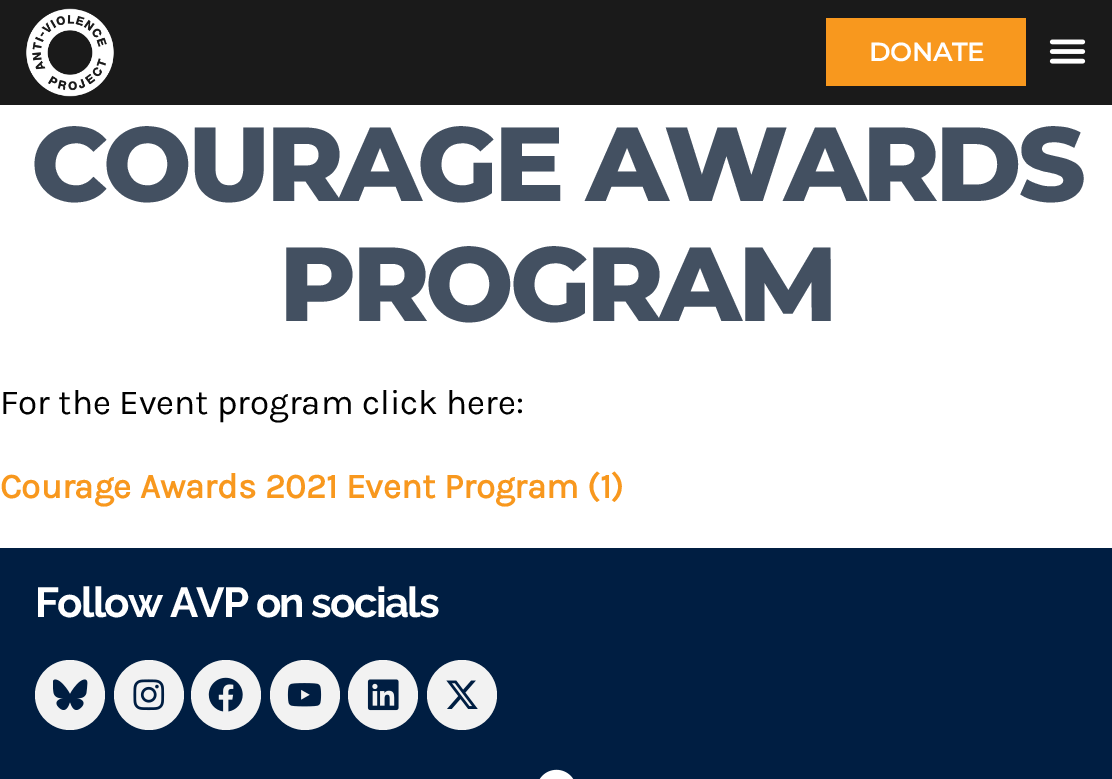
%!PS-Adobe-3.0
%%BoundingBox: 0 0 1112 779
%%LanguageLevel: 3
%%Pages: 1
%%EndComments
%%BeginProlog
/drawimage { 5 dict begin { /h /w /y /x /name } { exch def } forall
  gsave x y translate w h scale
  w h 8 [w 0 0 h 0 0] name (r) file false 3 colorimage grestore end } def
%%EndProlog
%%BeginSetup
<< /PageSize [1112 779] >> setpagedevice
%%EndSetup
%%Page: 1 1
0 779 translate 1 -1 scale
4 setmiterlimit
1 setgray
0 0 1112 779 rectfill
0.102 setgray
0 0 1112 105 rectfill
(images/1.raw) 26 8 88 89 drawimage
0.973 0.596 0.118 setrgbcolor
826 18 200 68 rectfill
(images/2.raw) 1049 39 37 25 drawimage
0 0.118 0.259 setrgbcolor
0 548 1112 231 rectfill
0.949 setgray
newpath 70 695 35 0 360 arc closepath fill
(images/3.raw) 53 679 35 31 drawimage
newpath 149 695 35 0 360 arc closepath fill
(images/4.raw) 133 679 32 32 drawimage
newpath 226 695 35 0 360 arc closepath fill
(images/5.raw) 208 677 35 35 drawimage
newpath 305 695 35 0 360 arc closepath fill
(images/6.raw) 287 683 35 24 drawimage
newpath 383 695 35 0 360 arc closepath fill
(images/7.raw) 367 679 32 32 drawimage
newpath 462 695 35 0 360 arc closepath fill
(images/8.raw) 446 680 32 29 drawimage
(images/9.raw) 539 769 35 10 drawimage
/Montserrat-SemiBold [26.25 0 0 -26.25 0 0] selectfont
1 setgray
869 61 moveto -0.5 0 (DONATE) ashow
/Montserrat-ExtraBold [105 0 0 -105 0 0] selectfont
0.263 0.314 0.38 setrgbcolor
31 201 moveto -4.4 0 (COURAGE AWARDS) ashow
279 321 moveto -4.4 0 (PROGRAM) ashow
/Karla-Regular [35 0 0 -35 0 0] selectfont
0 setgray
0 414 moveto (For the Event program click here:) show
/Karla-Bold [35 0 0 -35 0 0] selectfont
0.973 0.596 0.118 setrgbcolor
0 498 moveto (Courage Awards 2021 Event Program \(1\)) show
/Raleway-Bold [42 0 0 -42 0 0] selectfont
1 setgray
35 617 moveto -1.75 0 (Follow AVP on socials) ashow
showpage
%%EOF
